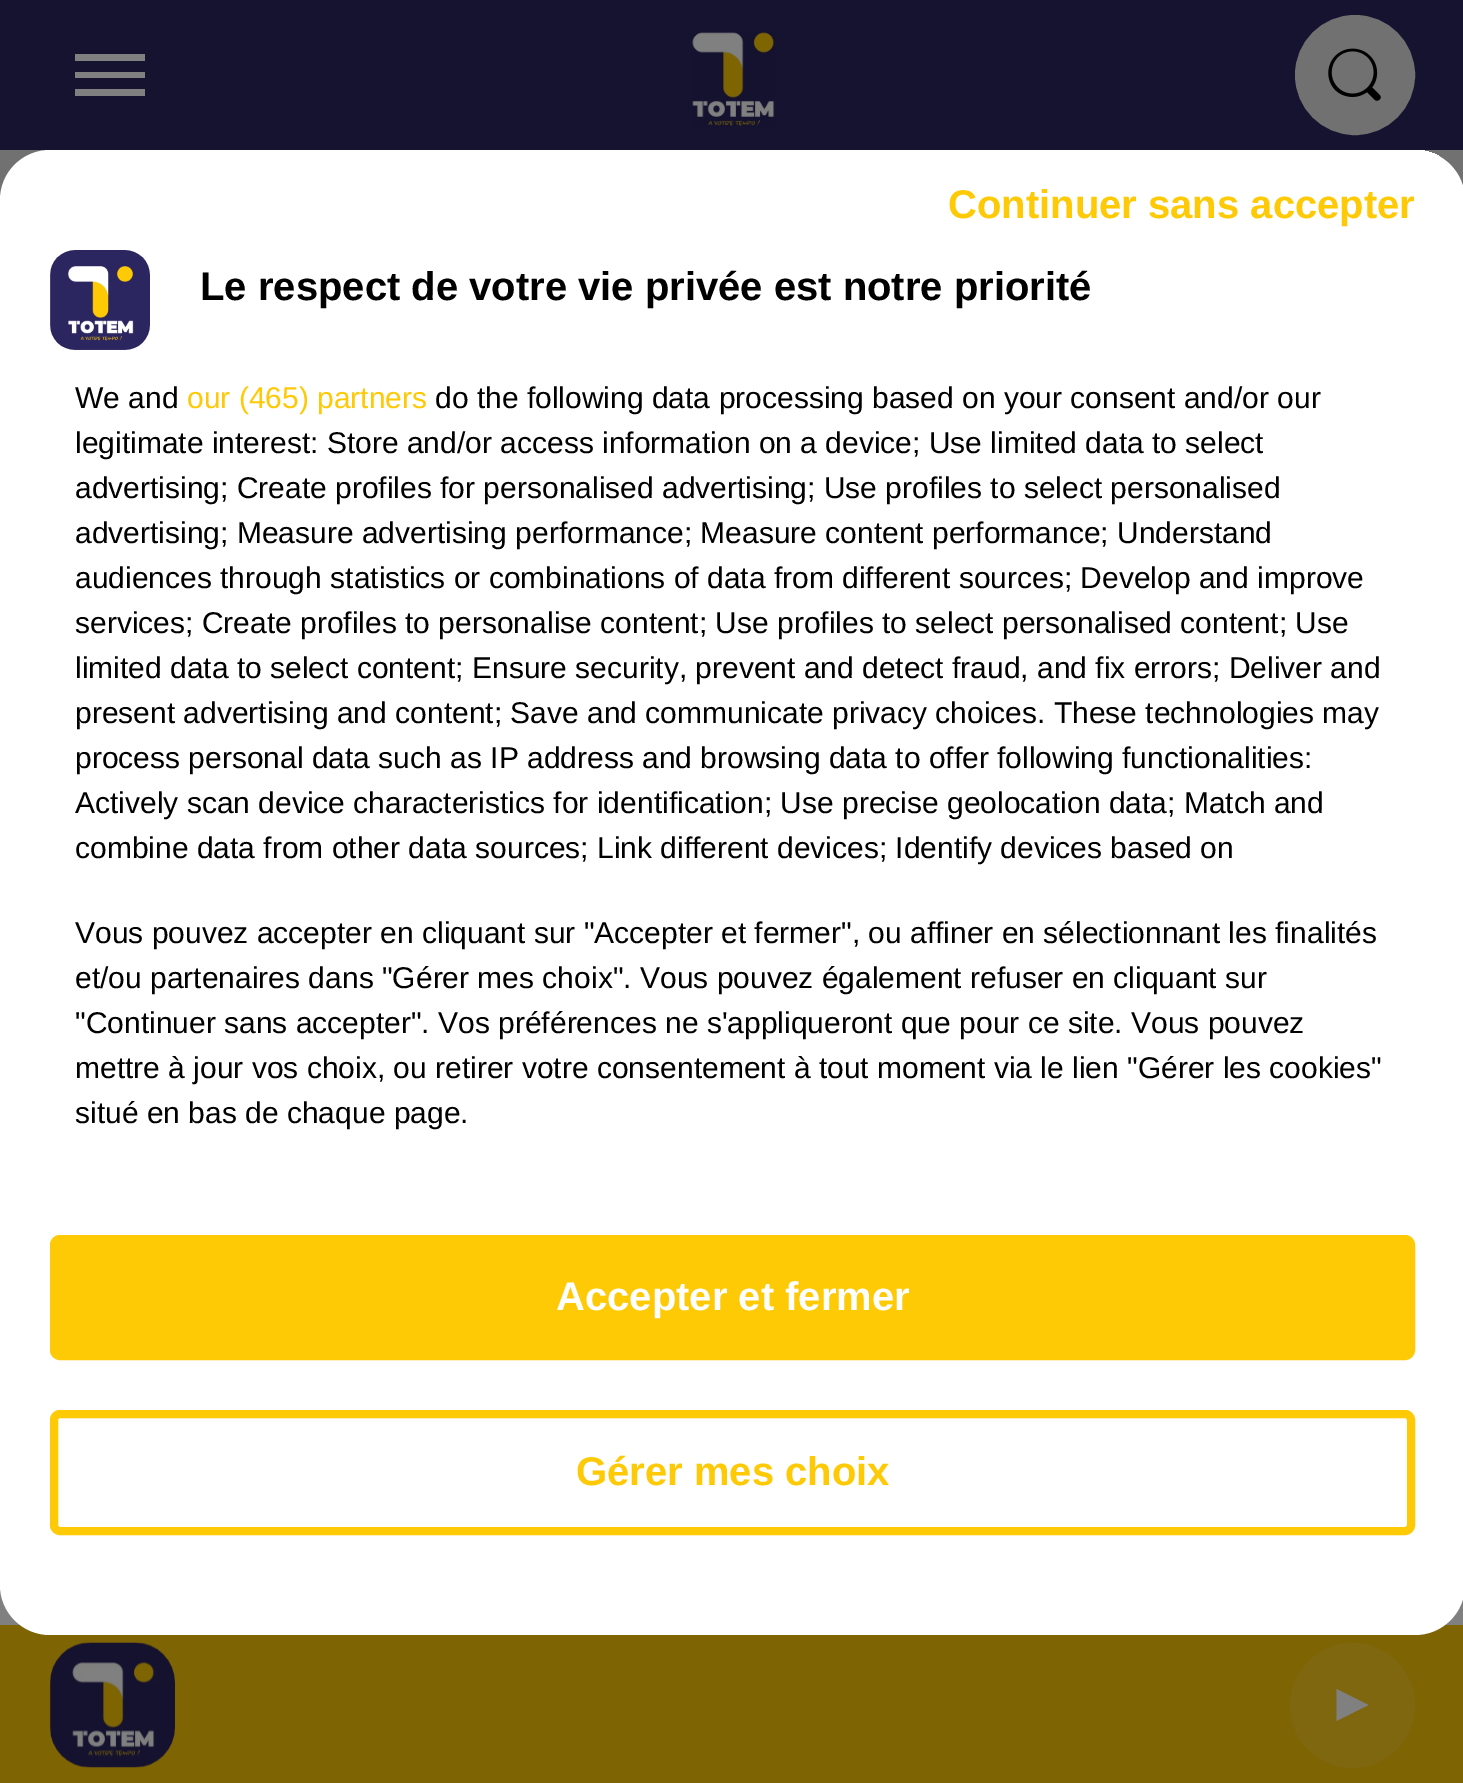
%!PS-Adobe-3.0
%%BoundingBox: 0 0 1463 1783
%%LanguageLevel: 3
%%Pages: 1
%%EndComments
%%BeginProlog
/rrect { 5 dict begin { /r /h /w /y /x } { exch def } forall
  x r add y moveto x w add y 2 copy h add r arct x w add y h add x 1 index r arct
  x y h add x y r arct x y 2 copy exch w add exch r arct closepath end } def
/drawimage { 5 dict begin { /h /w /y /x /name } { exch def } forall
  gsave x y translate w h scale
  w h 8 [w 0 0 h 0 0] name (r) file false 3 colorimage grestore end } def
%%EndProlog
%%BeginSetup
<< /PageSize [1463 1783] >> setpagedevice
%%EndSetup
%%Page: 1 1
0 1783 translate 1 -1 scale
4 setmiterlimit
0.502 setgray
0 0 1463 1783 rectfill
0.086 0.075 0.188 setrgbcolor
0 0 1463 150 rectfill
0.502 setgray
newpath 75 96 moveto 75 89 lineto 145 89 lineto 145 96 lineto closepath 75 78 moveto 75 72 lineto 145 72 lineto 145 78 lineto closepath 75 61 moveto 75 54 lineto 145 54 lineto 145 61 lineto closepath fill
(images/1.raw) 692 31 83 96 drawimage
0.443 setgray
newpath 1355 75 57.5 0 360 arc closepath gsave fill grestore
5 setlinewidth
stroke
(images/2.raw) 1328 48 53 53 drawimage
0.498 0.392 0.012 setrgbcolor
0 1625 1463 158 rectfill
(images/3.raw) 50 1642 125 126 drawimage
0.498 0.404 0.063 setrgbcolor
newpath 1352.5 1705.5 62.5 0 360 arc closepath fill
0.502 setgray
newpath 1368.5 1705 moveto 1336.5 1721 lineto 1336.5 1689 lineto closepath fill
0.443 setgray
0 150 1463 50 rectfill
1 setgray
0 150 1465 1485 50 rrect fill
gsave
0 150 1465 1485 50 rrect clip newpath
923 150 517 110 10 rrect fill
grestore
0.996 0.788 0.02 setrgbcolor
54 1239 1357 117 6 rrect gsave fill grestore
8 setlinewidth
stroke
54 1414 1357 117 6 rrect stroke
(images/4.raw) 50 250 100 100 drawimage
/LiberationSans-Bold [40 0 0 -40 0 0] selectfont
948 218 moveto (Continuer sans accepter) show
1 setgray
556 1310 moveto (Accepter et fermer) show
0.996 0.788 0.02 setrgbcolor
576 1485 moveto (Gérer mes choix) show
0 setgray
200 300 moveto (Le respect de votre vie privée est notre priorité) show
/LiberationSans-Regular [30 0 0 -30 0 0] selectfont
75 408 moveto (We and) show
0.996 0.788 0.02 setrgbcolor
187 408 moveto (our \(465\) partners) show
0 setgray
435 408 moveto (do the following data processing based on your consent and/or our) show
75 453 moveto (legitimate interest: Store and/or access information on a device; Use limited data to select) show
75 498 moveto (advertising; Create profiles for personalised advertising; Use profiles to select personalised) show
75 543 moveto (advertising; Measure advertising performance; Measure content performance; Understand) show
75 588 moveto (audiences through statistics or combinations of data from different sources; Develop and improve) show
75 633 moveto (services; Create profiles to personalise content; Use profiles to select personalised content; Use) show
75 678 moveto (limited data to select content; Ensure security, prevent and detect fraud, and fix errors; Deliver and) show
75 723 moveto (present advertising and content; Save and communicate privacy choices. These technologies may) show
75 768 moveto (process personal data such as IP address and browsing data to offer following functionalities:) show
75 813 moveto (Actively scan device characteristics for identification; Use precise geolocation data; Match and) show
75 858 moveto (combine data from other data sources; Link different devices; Identify devices based on) show
75 943 moveto (Vous pouvez accepter en cliquant sur "Accepter et fermer", ou affiner en sélectionnant les finalités) show
75 988 moveto (et/ou partenaires dans "Gérer mes choix". Vous pouvez également refuser en cliquant sur) show
75 1033 moveto ("Continuer sans accepter". Vos préférences ne s'appliqueront que pour ce site. Vous pouvez) show
75 1078 moveto (mettre à jour vos choix, ou retirer votre consentement à tout moment via le lien "Gérer les cookies") show
75 1123 moveto (situé en bas de chaque page.) show
showpage
%%EOF
